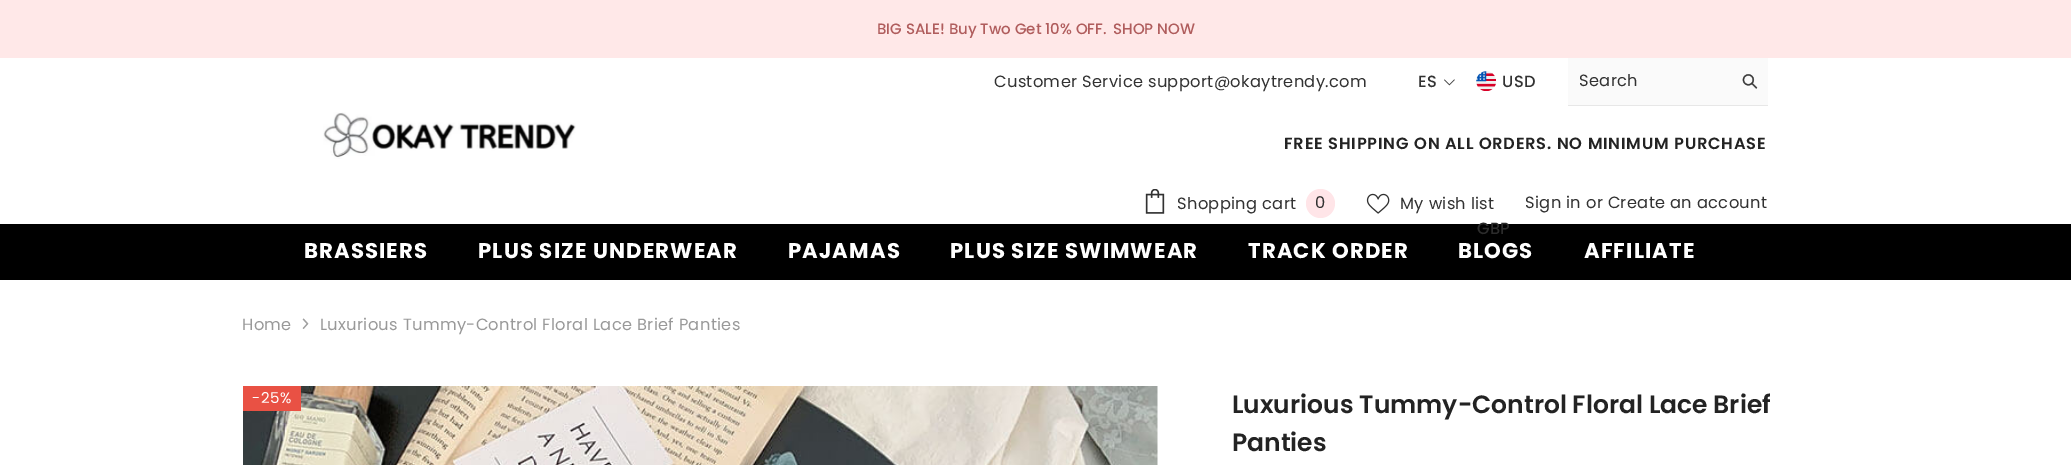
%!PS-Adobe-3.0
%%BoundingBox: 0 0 2071 465
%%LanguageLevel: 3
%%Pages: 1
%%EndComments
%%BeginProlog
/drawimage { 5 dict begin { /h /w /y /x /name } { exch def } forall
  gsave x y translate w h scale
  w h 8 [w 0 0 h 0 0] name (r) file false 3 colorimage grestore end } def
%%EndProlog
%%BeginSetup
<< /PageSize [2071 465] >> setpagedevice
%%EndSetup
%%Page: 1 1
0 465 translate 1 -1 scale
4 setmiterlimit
1 setgray
0 0 2071 465 rectfill
1 0.91 0.91 setrgbcolor
0 0 2071 58 rectfill
(images/1.raw) 323 112 253 47 drawimage
(images/2.raw) 1444 79 11 7 drawimage
(images/3.raw) 1476 71 20 20 drawimage
0.98 setgray
1568 58 200 47 rectfill
0.906 setgray
1568 105 200 1 rectfill
(images/4.raw) 1742 74 16 15 drawimage
(images/5.raw) 1145 189 20 25 drawimage
1 0.898 0.91 setrgbcolor
newpath 1320.5 203.5 14.5 0 360 arc closepath fill
(images/6.raw) 1366 193 24 21 drawimage
0 setgray
0 224 2071 56 rectfill
(images/7.raw) 302 318 7 11 drawimage
(images/8.raw) 243 386 915 79 drawimage
0.914 0.318 0.267 setrgbcolor
243 386 58 25 rectfill
/Poppins-Medium [15 0 0 -15 0 0] selectfont
0.69 0.365 0.365 setrgbcolor
877 34 moveto (BIG SALE! Buy Two Get 10% OFF.) show
1113 34 moveto (SHOP NOW) show
/Poppins-Regular [16.25 0 0 -16.25 0 0] selectfont
0.196 setgray
994 87 moveto 0.35 0 (Customer Service support@okaytrendy.com) ashow
/Poppins-Medium [16.25 0 0 -16.25 0 0] selectfont
1418 87 moveto 0.35 0 (ES) ashow
1502 87 moveto 0.35 0 (USD) ashow
0.169 setgray
1477 234 moveto 0.35 0 (GBP) ashow
/Poppins-Regular [16.25 0 0 -16.25 0 0] selectfont
0.196 setgray
1579 86 moveto 0.35 0 (Search) ashow
/Poppins-SemiBold [16.25 0 0 -16.25 0 0] selectfont
0.137 setgray
1284 149 moveto 0.8 0 (FREE SHIPPING ON ALL ORDERS. NO MINIMUM PURCHASE) ashow
/Poppins-Regular [16.25 0 0 -16.25 0 0] selectfont
0.196 setgray
1177 209 moveto 0.35 0 (Shopping cart) ashow
1315 208 moveto (0) show
1400 209 moveto 0.35 0 (My wish list) ashow
1525 208 moveto 0.35 0 (Sign in or Create an account) ashow
/Poppins-Bold [21.25 0 0 -21.25 0 0] selectfont
1 setgray
304 258 moveto 1.1 0 (BRASSIERS) ashow
478 258 moveto 1.1 0 (PLUS SIZE UNDERWEAR) ashow
788 258 moveto 1.1 0 (PAJAMAS) ashow
950 258 moveto 1.1 0 (PLUS SIZE SWIMWEAR) ashow
1248 258 moveto 1.1 0 (TRACK ORDER) ashow
1458 258 moveto 1.1 0 (BLOGS) ashow
1584 258 moveto 1.1 0 (AFFILIATE) ashow
/Poppins-Regular [16.25 0 0 -16.25 0 0] selectfont
0.6 setgray
242 330 moveto 0.35 0 (Home) ashow
320 330 moveto 0.35 0 (Luxurious Tummy-Control Floral Lace Brief Panties) ashow
/Poppins-Regular [15 0 0 -15 0 0] selectfont
1 setgray
252 403 moveto 0.5 0 (-25%) ashow
/Poppins-SemiBold [25 0 0 -25 0 0] selectfont
0.137 setgray
1232 413 moveto (Luxurious Tummy-Control Floral Lace Brief) show
1232 451 moveto (Panties) show
showpage
%%EOF
